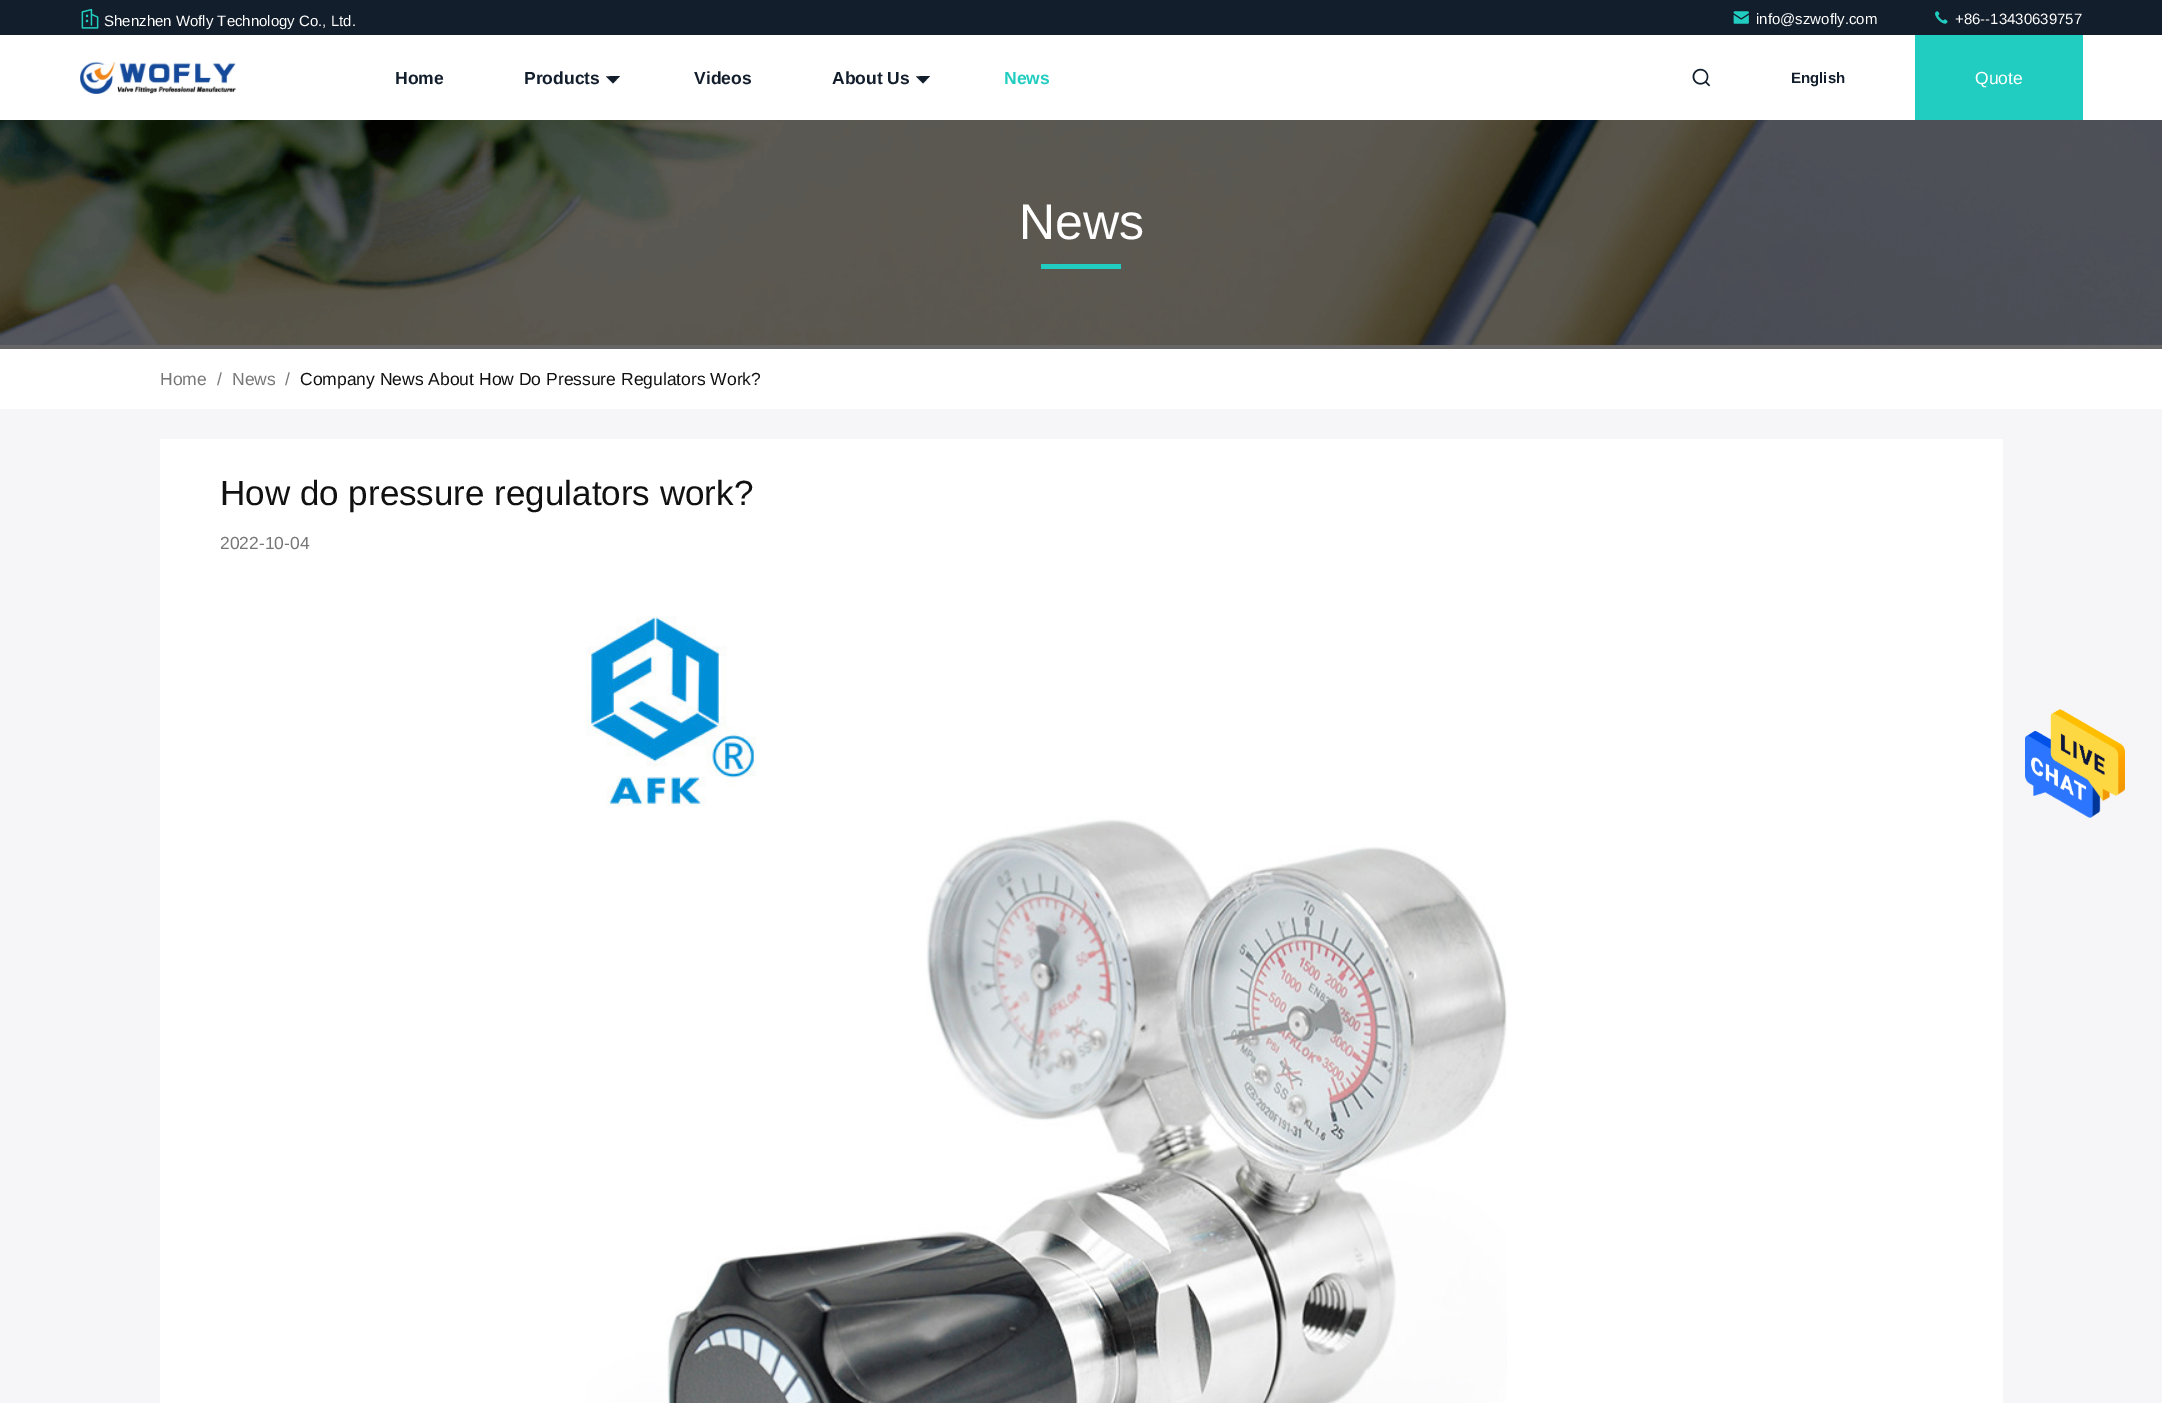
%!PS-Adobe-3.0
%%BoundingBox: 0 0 2162 1403
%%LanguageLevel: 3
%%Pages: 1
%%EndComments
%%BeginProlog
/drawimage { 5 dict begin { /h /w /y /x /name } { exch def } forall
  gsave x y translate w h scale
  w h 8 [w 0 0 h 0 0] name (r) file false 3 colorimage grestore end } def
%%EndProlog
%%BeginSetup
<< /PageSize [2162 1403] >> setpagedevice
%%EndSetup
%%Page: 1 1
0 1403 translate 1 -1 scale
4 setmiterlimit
1 setgray
0 0 2162 1403 rectfill
0.075 0.118 0.173 setrgbcolor
0 0 2162 35 rectfill
(images/1.raw) 81 8 18 21 drawimage
(images/2.raw) 1733 11 16 13 drawimage
(images/3.raw) 1935 11 13 13 drawimage
(images/4.raw) 80 61 156 33 drawimage
newpath 613 83.5 moveto 606 76.5 lineto 613 76 lineto closepath 620 76 moveto 613 83.5 lineto 613 76 lineto closepath fill
newpath 923 83.5 moveto 916 76.5 lineto 923 76 lineto closepath 930 76 moveto 923 83.5 lineto 923 76 lineto closepath fill
(images/5.raw) 1692 68 18 19 drawimage
0.129 0.804 0.753 setrgbcolor
1915 35 168 85 rectfill
0.4 setgray
0 345 2162 4 rectfill
(images/6.raw) 0 120 2162 225 drawimage
0.129 0.804 0.753 setrgbcolor
1041 264 80 5 rectfill
0.965 0.965 0.976 setrgbcolor
0 409 2162 994 rectfill
1 setgray
160 439 1843 964 rectfill
(images/7.raw) 586 616 921 787 drawimage
(images/8.raw) 2025 709 100 109 drawimage
/LiberationSans-Regular [15 0 0 -15 0 0] selectfont
104 26 moveto (Shenzhen Wofly Technology Co., Ltd.) show
1756 24 moveto (info@szwofly.com) show
1955 24 moveto (+86--13430639757) show
/LiberationSans-Bold [17.5 0 0 -17.5 0 0] selectfont
0.075 0.118 0.173 setrgbcolor
395 84 moveto (Home) show
524 84 moveto (Products) show
694 84 moveto (Videos) show
832 84 moveto (About Us) show
0.129 0.804 0.753 setrgbcolor
1004 84 moveto (News) show
/LiberationSans-Bold [15 0 0 -15 0 0] selectfont
0.075 0.118 0.173 setrgbcolor
1791 83 moveto (English) show
/LiberationSans-Regular [17.5 0 0 -17.5 0 0] selectfont
1 setgray
1975 84 moveto (Quote) show
/LiberationSans-Regular [50 0 0 -50 0 0] selectfont
1019 239 moveto (News) show
/LiberationSans-Regular [17.5 0 0 -17.5 0 0] selectfont
0.467 setgray
160 385 moveto (Home) show
217 385 moveto (/) show
232 385 moveto (News) show
285 385 moveto (/) show
0.067 setgray
300 385 moveto (Company News About How Do Pressure Regulators Work?) show
/LiberationSans-Regular [35 0 0 -35 0 0] selectfont
220 505 moveto (How do pressure regulators work?) show
/LiberationSans-Regular [17.5 0 0 -17.5 0 0] selectfont
0.467 setgray
220 549 moveto (2022-10-04) show
showpage
%%EOF
